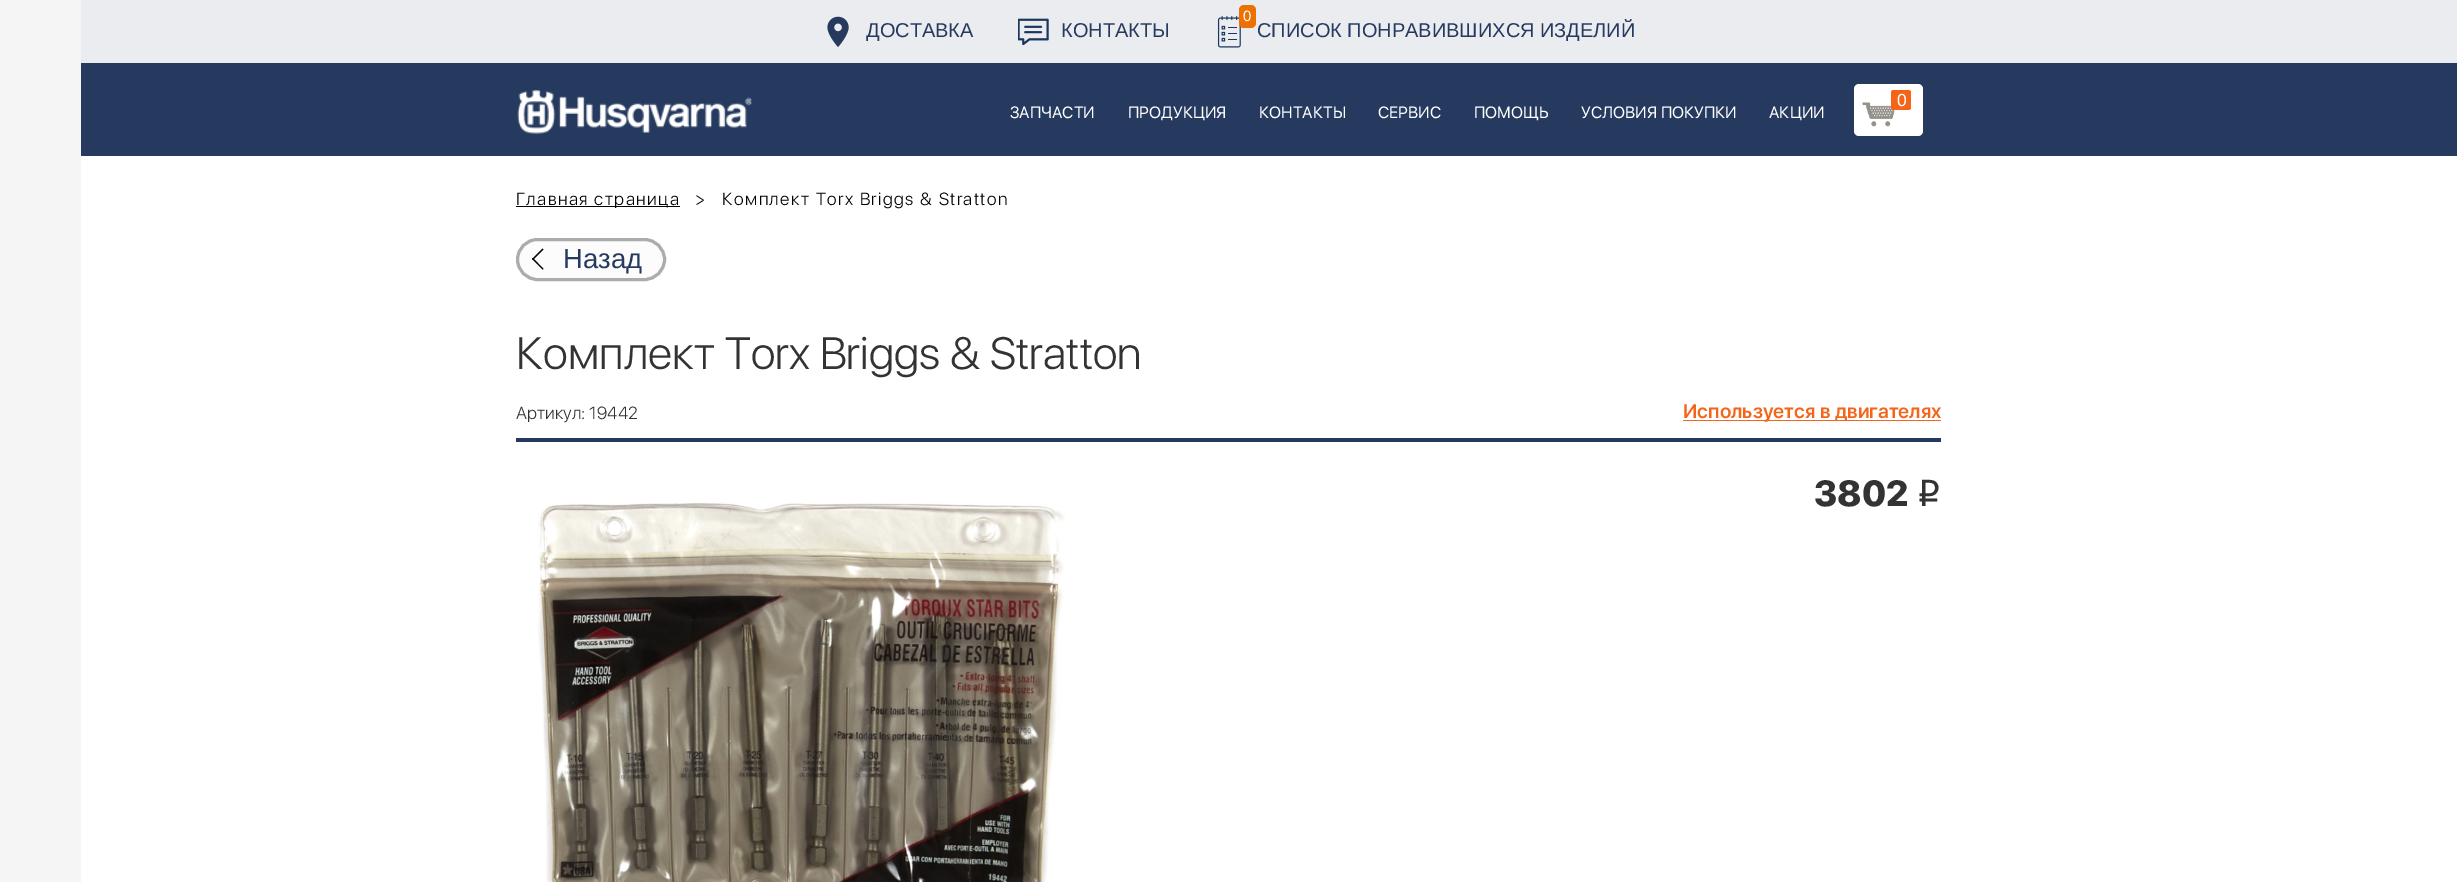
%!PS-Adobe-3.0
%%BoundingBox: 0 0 2457 882
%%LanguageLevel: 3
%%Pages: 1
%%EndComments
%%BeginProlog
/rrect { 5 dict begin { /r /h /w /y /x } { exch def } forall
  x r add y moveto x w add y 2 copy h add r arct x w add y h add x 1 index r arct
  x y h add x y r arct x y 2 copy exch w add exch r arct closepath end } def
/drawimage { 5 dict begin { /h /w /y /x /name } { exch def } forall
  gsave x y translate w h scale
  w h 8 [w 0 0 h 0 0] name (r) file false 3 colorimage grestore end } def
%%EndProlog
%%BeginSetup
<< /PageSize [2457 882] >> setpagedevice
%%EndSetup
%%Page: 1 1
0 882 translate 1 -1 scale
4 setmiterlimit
1 setgray
0 0 2457 882 rectfill
0.961 setgray
0 0 81 882 rectfill
0.918 0.925 0.941 setrgbcolor
81 0 2376 63 rectfill
(images/1.raw) 827 16 22 32 drawimage
(images/2.raw) 1018 18 31 28 drawimage
(images/3.raw) 1217 16 24 32 drawimage
0.929 0.443 0.008 setrgbcolor
1239 5 17 23 5 rrect fill
0.149 0.227 0.373 setrgbcolor
81 63 2376 93 rectfill
(images/4.raw) 517 90 235 44 drawimage
1 setgray
1854 84 69 52 5 rrect fill
(images/5.raw) 1862 102 33 25 drawimage
0.957 0.396 0.102 setrgbcolor
1891 90 20 20 2.5 rrect fill
0 setgray
516 206 164 1 rectfill
0.988 setgray
517.5 239.5 147 40 20 rrect gsave fill grestore
0.675 setgray
3 setlinewidth
stroke
0 setgray
newpath 532 259 moveto 542.5 248.5 lineto 543.5 249.5 lineto 533 260 lineto closepath fill
newpath 532 259 moveto 533 258 lineto 543.5 269 lineto 542.5 269.5 lineto closepath fill
0.957 0.396 0.102 setrgbcolor
1683 420 258 1 rectfill
0.149 0.227 0.373 setrgbcolor
516 438 1425 4 rectfill
(images/6.raw) 537 502 528 380 drawimage
/LiberationSans-Regular [20 0 0 -20 0 0] selectfont
866 37 moveto (ДОСТАВКА) show
1061 37 moveto (КОНТАКТЫ) show
/LiberationSans-Regular [15 0 0 -15 0 0] selectfont
1 setgray
1243 21 moveto (0) show
/LiberationSans-Regular [20 0 0 -20 0 0] selectfont
0.149 0.227 0.373 setrgbcolor
1257 37 moveto (СПИСОК ПОНРАВИВШИХСЯ ИЗДЕЛИЙ) show
/LiberationSans-Regular [17.5 0 0 -17.5 0 0] selectfont
1 setgray
1897 106 moveto (0) show
/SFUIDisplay-Regular [16.25 0 0 -16.25 0 0] selectfont
1010 118 moveto (ЗАПЧАСТИ) show
1128 118 moveto (ПРОДУКЦИЯ) show
1259 118 moveto (КОНТАКТЫ) show
1378 118 moveto (СЕРВИС) show
1474 118 moveto (ПОМОЩЬ) show
1581 118 moveto (УСЛОВИЯ ПОКУПКИ) show
1769 118 moveto (АКЦИИ) show
/SFUIDisplay-Light [17.5 0 0 -17.5 0 0] selectfont
0 setgray
516 205 moveto 1.4 0 (Главная страница) ashow
695 205 moveto 1.4 0 (>) ashow
722 205 moveto 1.4 0 (Комплект Torx Briggs & Stratton) ashow
/LiberationSans-Regular [27.5 0 0 -27.5 0 0] selectfont
0.149 0.227 0.373 setrgbcolor
563 268 moveto (Назад) show
/SFUIDisplay-Light [45 0 0 -45 0 0] selectfont
0.2 setgray
516 369 moveto (Комплект Torx Briggs & Stratton) show
/SFUIDisplay-Light [17.5 0 0 -17.5 0 0] selectfont
516 419 moveto (Артикул: 19442) show
/SFUIDisplay-SemiBold [20 0 0 -20 0 0] selectfont
0.957 0.396 0.102 setrgbcolor
1683 418 moveto (Используется в двигателях) show
/SFUIDisplay-Black [37.5 0 0 -37.5 0 0] selectfont
0.2 setgray
1814 506 moveto (3802) show
/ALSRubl-Regular [37.5 0 0 -37.5 0 0] selectfont
1916 506 moveto (i) show
showpage
%%EOF
